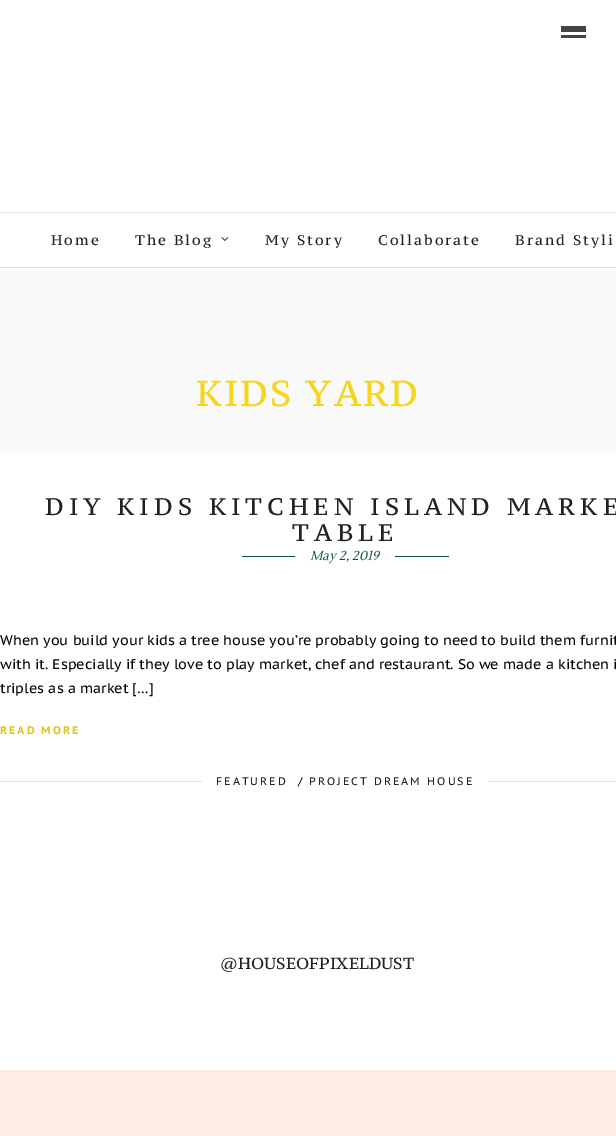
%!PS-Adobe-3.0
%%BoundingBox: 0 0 616 1136
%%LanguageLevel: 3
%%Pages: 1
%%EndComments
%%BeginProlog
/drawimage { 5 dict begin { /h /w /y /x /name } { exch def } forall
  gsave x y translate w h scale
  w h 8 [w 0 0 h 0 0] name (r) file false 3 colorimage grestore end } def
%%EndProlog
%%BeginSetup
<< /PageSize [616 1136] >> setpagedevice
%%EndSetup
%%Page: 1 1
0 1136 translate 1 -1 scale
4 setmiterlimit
1 setgray
0 0 616 1136 rectfill
0.882 setgray
0 267 616 1 rectfill
0 212 616 1 rectfill
0.267 setgray
561 26 25 6 rectfill
561 35 25 3 rectfill
(images/1.raw) 221 237 8 4 drawimage
0.976 setgray
0 271 616 182 rectfill
0.02 0.31 0.204 setrgbcolor
242 556 207 1 rectfill
1 setgray
295 556 100 1 rectfill
0.882 setgray
0 781 616 1 rectfill
1 setgray
202 781 286 1 rectfill
0.992 0.929 0.886 setrgbcolor
0 1070 616 66 rectfill
/PTSerifCaption-Regular [14 0 0 -14 0 0] selectfont
0.133 setgray
51 245 moveto 2 0 (Home) ashow
135 245 moveto 2 0 (The Blog) ashow
265 245 moveto 2 0 (My Story) ashow
378 245 moveto 2 0 (Collaborate) ashow
515 245 moveto 2 0 (Brand Styli) ashow
/PTSerifCaption-Regular [36 0 0 -36 0 0] selectfont
0.961 0.835 0.114 setrgbcolor
196 406 moveto 2 0 (KIDS YARD) ashow
/PTSerifCaption-Regular [24 0 0 -24 0 0] selectfont
0.133 setgray
45 515 moveto 5 0 (DIY KIDS KITCHEN ISLAND MARKE) ashow
292 541 moveto 5 0 (TABLE) ashow
/Lustria-Italic [13 0 0 -13 0 0] selectfont
0.02 0.31 0.204 setrgbcolor
310 560 moveto (May 2, 2019) show
/PTSansCaption-Regular [14 0 0 -14 0 0] selectfont
0 setgray
0 645 moveto (When you build your kids a tree house you’re probably going to need to build them furnit) show
0 669 moveto (with it. Especially if they love to play market, chef and restaurant. So we made a kitchen i) show
0 693 moveto (triples as a market […]) show
/PTSansCaption-Bold [11 0 0 -11 0 0] selectfont
0.867 0.773 0.067 setrgbcolor
0 734 moveto 2 0 (READ MORE) ashow
/PTSansCaption-Regular [11 0 0 -11 0 0] selectfont
0.133 setgray
216 785 moveto 2 0 (FEATURED) ashow
0 setgray
298 785 moveto 2 0 (/) ashow
0.133 setgray
309 785 moveto 2 0 (PROJECT DREAM HOUSE) ashow
/PTSerifCaption-Regular [16 0 0 -16 0 0] selectfont
220 969 moveto (@HOUSEOFPIXELDUST) show
showpage
%%EOF
